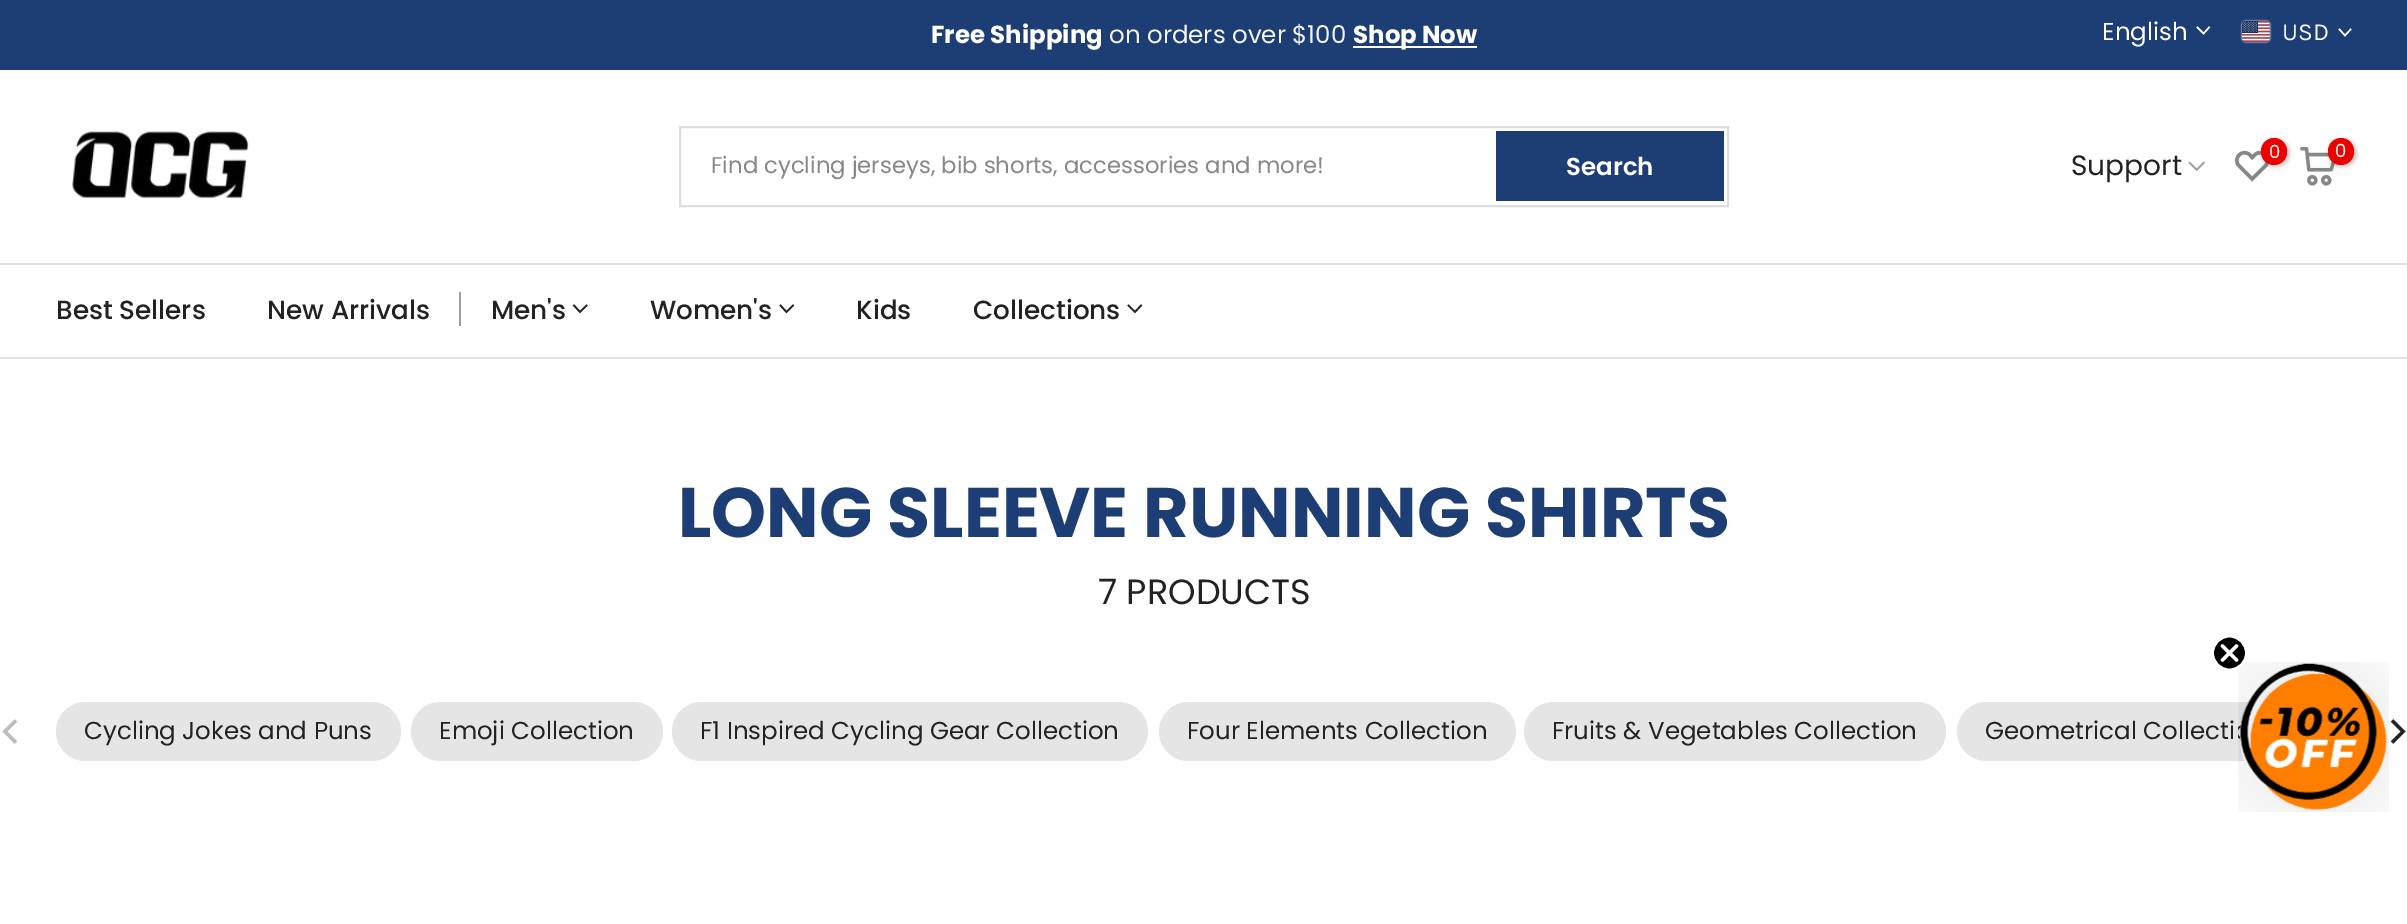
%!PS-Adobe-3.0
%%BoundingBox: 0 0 2407 924
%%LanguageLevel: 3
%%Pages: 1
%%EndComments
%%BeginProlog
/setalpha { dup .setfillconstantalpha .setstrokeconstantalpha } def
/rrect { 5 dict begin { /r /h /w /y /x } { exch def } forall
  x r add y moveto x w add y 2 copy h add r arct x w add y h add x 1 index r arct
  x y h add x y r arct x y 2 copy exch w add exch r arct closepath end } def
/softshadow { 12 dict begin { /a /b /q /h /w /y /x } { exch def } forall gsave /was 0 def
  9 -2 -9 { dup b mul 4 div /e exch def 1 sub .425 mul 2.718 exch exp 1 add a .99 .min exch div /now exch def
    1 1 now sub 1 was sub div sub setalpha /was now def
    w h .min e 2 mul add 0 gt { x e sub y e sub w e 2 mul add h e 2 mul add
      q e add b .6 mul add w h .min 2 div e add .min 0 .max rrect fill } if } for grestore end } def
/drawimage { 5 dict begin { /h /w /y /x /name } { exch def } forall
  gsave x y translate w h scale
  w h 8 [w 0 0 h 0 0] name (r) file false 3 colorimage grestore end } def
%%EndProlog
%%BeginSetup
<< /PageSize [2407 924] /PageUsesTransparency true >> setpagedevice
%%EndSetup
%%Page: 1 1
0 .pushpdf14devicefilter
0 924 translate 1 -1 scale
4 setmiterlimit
1 setgray
0 0 2407 924 rectfill
0.114 0.239 0.459 setrgbcolor
0 0 2407 70 rectfill
1 setgray
1353 46 124 2 rectfill
1.5 setlinewidth
2 setlinecap
newpath 2209 27.5 moveto 2203.5 33.5 lineto 2197.5 27.5 lineto stroke
2242 21 28 21 4 1 1 softshadow
(images/1.raw) 2242 21 28 21 drawimage
newpath 2350.5 29.5 moveto 2345 35.5 lineto 2339.5 29.5 lineto stroke
(images/2.raw) 72 131 177 68 drawimage
0.867 setgray
2 setlinewidth
0 setlinecap
680 127 1048 79 rectstroke
0.114 0.239 0.459 setrgbcolor
1496 131 228 70 rectfill
(images/3.raw) 2234 150 35 32 drawimage
0 setgray
2263 140 26 26 13 2.5 0.3 softshadow
0.925 0.004 0.004 setrgbcolor
2261 138 26 27 13 rrect fill
(images/4.raw) 2300 147 35 39 drawimage
0 setgray
2329 140 27 26 13 2.5 0.3 softshadow
0.925 0.004 0.004 setrgbcolor
2328 138 26 27 13 rrect fill
(images/5.raw) 2188 161 17 10 drawimage
0.886 setgray
0 263 2407 2 rectfill
0 357 2407 2 rectfill
0.62 setgray
459 292 2 34 rectfill
0.133 setgray
1.7 setlinewidth
2 setlinecap
newpath 586.5 305.5 moveto 580 312 lineto 574 305.5 lineto stroke
newpath 793 305.5 moveto 786.5 312 lineto 780.5 305.5 lineto stroke
newpath 1141 305.5 moveto 1135 312 lineto 1128.5 305.5 lineto stroke
(images/6.raw) 2 719 16 25 drawimage
0.898 setgray
56 702 345 59 29.5 rrect fill
411 702 252 59 29.5 rrect fill
672 702 476 59 29.5 rrect fill
1159 702 357 59 29.5 rrect fill
1524 702 422 59 29.5 rrect fill
1957 702 337 59 29.5 rrect fill
(images/7.raw) 2390 719 16 25 drawimage
(images/8.raw) 71 902 1 2 drawimage
1 setgray
newpath 2313.5 736.5 73.5 0 360 arc closepath fill
(images/9.raw) 2238 662 151 150 drawimage
0 setgray
newpath 2229.5 653 16.5 0 360 arc closepath fill
gsave
2212 635 35 35 rectclip
1 setgray
1.8 setlinewidth
0 setlinecap
newpath 2229.5 653 16.5 0 360 arc closepath stroke
grestore
1 setgray
3.5 setlinewidth
1 setlinecap
1 setlinejoin
newpath 2222.5 646 moveto 2236.5 660 lineto 2222.5 660 moveto 2236.5 646 lineto closepath stroke
/Poppins-Bold [24.5 0 0 -24.5 0 0] selectfont
931 43 moveto (Free Shipping) show
/Poppins-Regular [24.5 0 0 -24.5 0 0] selectfont
0.961 setgray
1109 43 moveto (on orders over $100) show
/Poppins-Bold [24.5 0 0 -24.5 0 0] selectfont
1 setgray
1353 43 moveto (Shop Now) show
/Poppins-Regular [24.5 0 0 -24.5 0 0] selectfont
2102 40 moveto (English) show
/Karla-Regular [24.5 0 0 -24.5 0 0] selectfont
0.961 setgray
2282 40 moveto (USD) show
/Poppins-Regular [22.75 0 0 -22.75 0 0] selectfont
0.529 setgray
711 173 moveto (Find cycling jerseys, bib shorts, accessories and more!) show
/Poppins-SemiBold [24.5 0 0 -24.5 0 0] selectfont
1 setgray
1566 175 moveto (Search) show
/Poppins-Regular [18 0 0 -18 0 0] selectfont
2269 158 moveto (0) show
2335 157 moveto (0) show
/Poppins-Regular [28 0 0 -28 0 0] selectfont
0.133 setgray
2071 175 moveto (Support) show
/Poppins-Medium [26.25 0 0 -26.25 0 0] selectfont
56 319 moveto (Best Sellers) show
267 319 moveto (New Arrivals) show
491 319 moveto (Men's) show
650 319 moveto (Women's) show
856 319 moveto (Kids) show
973 319 moveto (Collections) show
/Poppins-Bold [70 0 0 -70 0 0] selectfont
0.114 0.239 0.459 setrgbcolor
678 537 moveto (LONG SLEEVE RUNNING SHIRTS) show
/Poppins-Regular [35 0 0 -35 0 0] selectfont
0.133 setgray
1098 604 moveto (7 PRODUCTS) show
/Poppins-Regular [24.5 0 0 -24.5 0 0] selectfont
84 739 moveto (Cycling Jokes and Puns) show
439 739 moveto (Emoji Collection) show
700 739 moveto (F1 Inspired Cycling Gear Collection) show
1187 739 moveto (Four Elements Collection) show
1552 739 moveto (Fruits & Vegetables Collection) show
1985 739 moveto (Geometrical Collecti) show
.poppdf14devicefilter showpage
%%EOF
